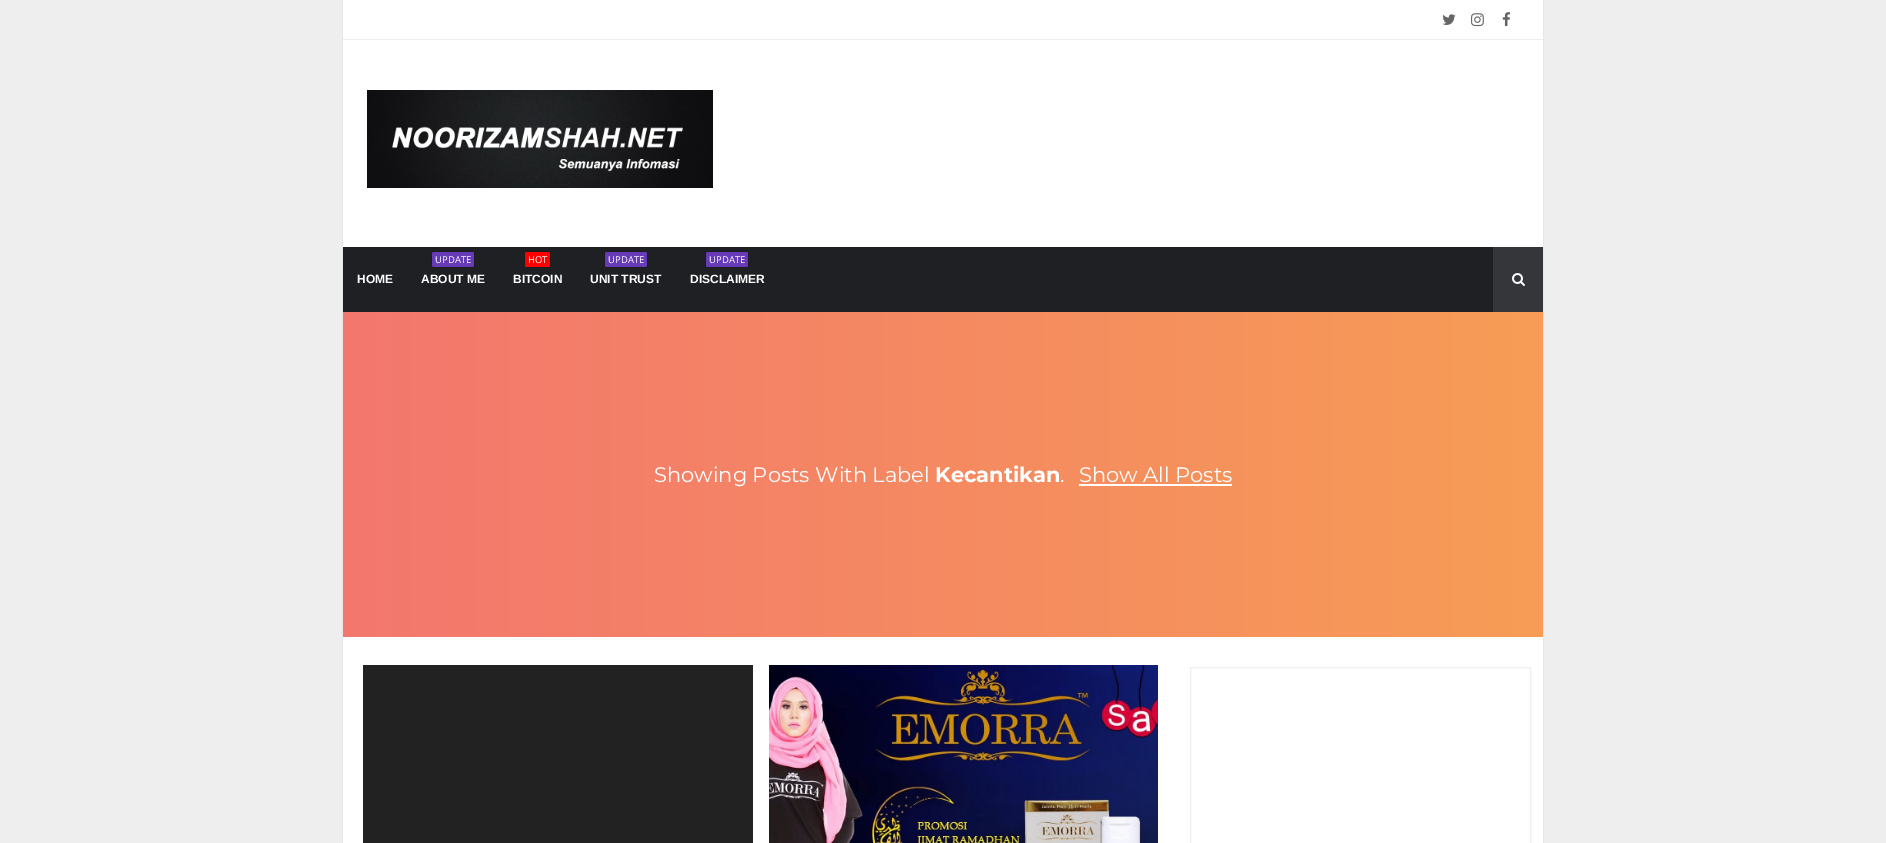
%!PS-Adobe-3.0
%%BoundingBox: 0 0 1886 843
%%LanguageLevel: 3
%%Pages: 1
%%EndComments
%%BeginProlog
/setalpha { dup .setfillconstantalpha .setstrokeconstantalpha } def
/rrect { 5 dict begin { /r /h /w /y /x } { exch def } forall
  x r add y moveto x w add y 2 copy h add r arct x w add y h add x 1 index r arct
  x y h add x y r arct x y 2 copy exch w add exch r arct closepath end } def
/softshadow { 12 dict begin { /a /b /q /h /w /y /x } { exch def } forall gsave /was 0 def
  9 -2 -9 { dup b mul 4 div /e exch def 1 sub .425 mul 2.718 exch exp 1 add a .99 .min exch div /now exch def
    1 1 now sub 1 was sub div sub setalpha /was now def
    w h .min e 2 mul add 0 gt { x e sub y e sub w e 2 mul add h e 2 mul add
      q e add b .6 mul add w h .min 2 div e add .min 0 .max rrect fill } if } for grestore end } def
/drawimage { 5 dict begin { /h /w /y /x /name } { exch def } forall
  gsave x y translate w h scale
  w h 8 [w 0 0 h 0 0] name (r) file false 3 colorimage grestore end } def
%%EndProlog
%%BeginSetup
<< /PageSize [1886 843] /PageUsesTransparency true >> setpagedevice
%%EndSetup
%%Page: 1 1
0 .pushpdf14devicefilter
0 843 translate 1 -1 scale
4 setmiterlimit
0.933 setgray
0 0 1886 843 rectfill
0.667 setgray
343 0 1200 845 0 0.5 0.36 softshadow
1 setgray
343 0 1200 247 rectfill
0.933 setgray
343 39 1200 1 rectfill
(images/1.raw) 1442 14 14 11 drawimage
(images/2.raw) 1471 13 13 14 drawimage
(images/3.raw) 1502 12 9 15 drawimage
(images/4.raw) 367 90 346 98 drawimage
0.122 0.125 0.141 setrgbcolor
343 247 1150 65 rectfill
0 setgray
432 252 42 15 2 0.5 0.38 softshadow
0.404 0.227 0.718 setrgbcolor
432 252 42 15 2 rrect fill
0 setgray
525 252 25 15 2 0.5 0.38 softshadow
1 0 0 setrgbcolor
525 252 25 15 2 rrect fill
0 setgray
605 252 42 15 2 0.5 0.38 softshadow
0.404 0.227 0.718 setrgbcolor
605 252 42 15 2 rrect fill
0 setgray
706 252 42 15 2 0.5 0.38 softshadow
0.404 0.227 0.718 setrgbcolor
706 252 42 15 2 rrect fill
0.208 0.212 0.227 setrgbcolor
1493 247 50 65 rectfill
(images/5.raw) 1512 273 13 13 drawimage
gsave newpath 343 312 moveto 1543 312 lineto 1543 637 lineto 343 637 lineto closepath clip newpath
<< /ShadingType 2 /ColorSpace /DeviceRGB /Coords [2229 475 343 474] /Extend [true true] /Function << /FunctionType 2 /Domain [0 1] /C0 [0.98 0.698 0.282] /C1 [0.953 0.467 0.431] /N 1 >> >> shfill grestore
1 setgray
1079 484 153 2 rectfill
343 637 1200 206 rectfill
0.133 setgray
363 665 390 178 rectfill
(images/6.raw) 769 665 389 178 drawimage
0.933 setgray
1190.5 667.5 340 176 rectstroke
/Arimo-Bold [12 0 0 -12 0 0] selectfont
1 setgray
357 283 moveto (HOME) show
/OpenSans-Regular [9.5 0 0 -9.5 0 0] selectfont
435 263 moveto (UPDATE) show
/Arimo-Bold [12 0 0 -12 0 0] selectfont
421 283 moveto (ABOUT ME) show
/OpenSans-Regular [9.5 0 0 -9.5 0 0] selectfont
528 263 moveto (HOT) show
/Arimo-Bold [12 0 0 -12 0 0] selectfont
513 283 moveto (BITCOIN) show
/OpenSans-Regular [9.5 0 0 -9.5 0 0] selectfont
608 263 moveto (UPDATE) show
/Arimo-Bold [12 0 0 -12 0 0] selectfont
590 283 moveto (UNIT TRUST) show
/OpenSans-Regular [9.5 0 0 -9.5 0 0] selectfont
709 263 moveto (UPDATE) show
/Arimo-Bold [12 0 0 -12 0 0] selectfont
690 283 moveto (DISCLAIMER) show
/Montserrat-Regular [21 0 0 -21 0 0] selectfont
654 482 moveto (Showing Posts With Label) show
/Montserrat-Thin [21 0 0 -21 0 0] selectfont
935 482 moveto (Kecantikan) show
/Montserrat-Regular [21 0 0 -21 0 0] selectfont
1060 482 moveto (.) show
1079 482 moveto (Show All Posts) show
.poppdf14devicefilter showpage
%%EOF
